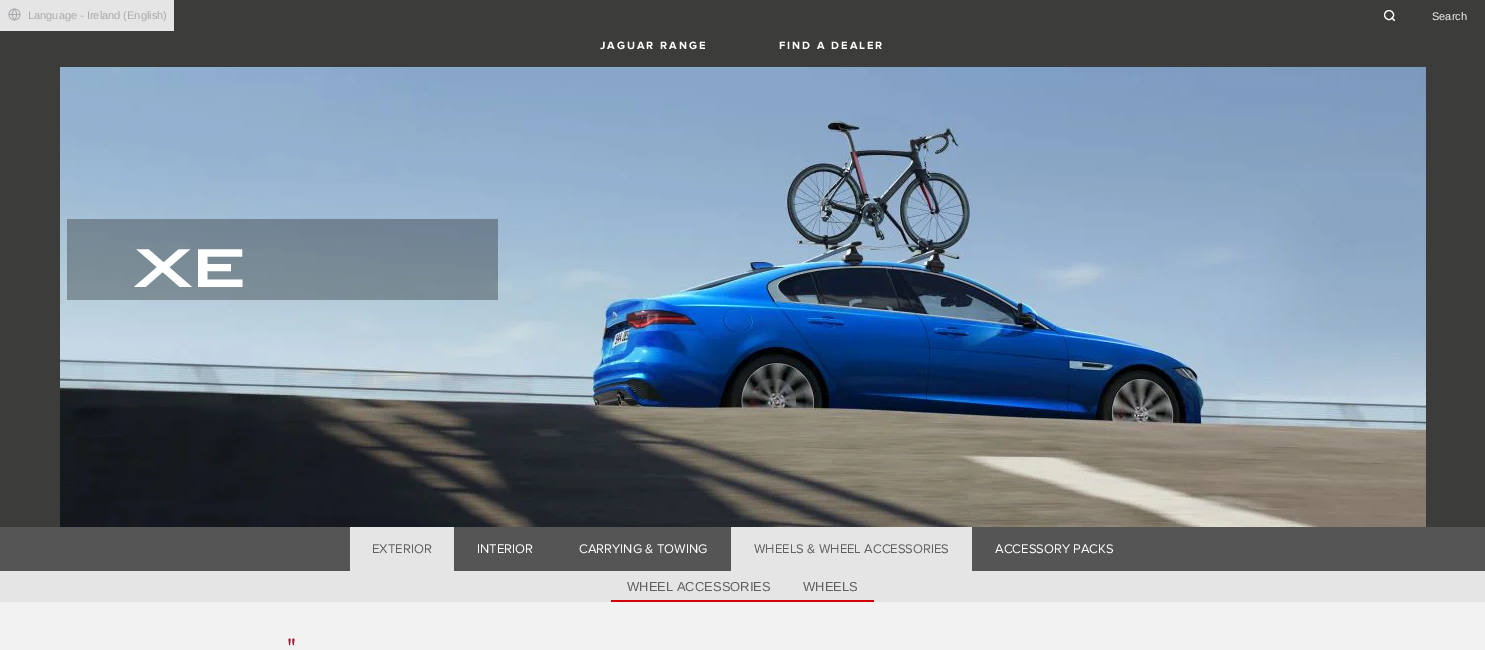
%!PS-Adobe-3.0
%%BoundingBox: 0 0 1485 650
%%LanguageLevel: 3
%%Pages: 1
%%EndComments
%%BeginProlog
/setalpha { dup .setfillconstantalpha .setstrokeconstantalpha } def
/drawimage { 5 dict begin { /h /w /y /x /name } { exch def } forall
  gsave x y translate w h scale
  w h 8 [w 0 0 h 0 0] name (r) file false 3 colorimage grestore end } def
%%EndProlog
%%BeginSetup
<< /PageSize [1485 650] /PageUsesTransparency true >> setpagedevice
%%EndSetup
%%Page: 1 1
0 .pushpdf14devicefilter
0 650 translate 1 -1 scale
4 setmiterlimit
0.235 0.235 0.231 setrgbcolor
0 0 1485 650 rectfill
0.898 setgray
0 0 174 31 rectfill
(images/1.raw) 8 8 13 13 drawimage
1 setgray
1.1 setlinewidth
newpath 1389 15 4.5 0 360 arc closepath stroke
1 setlinecap
1 setlinejoin
newpath 1394.5 20.5 moveto 1392 18 lineto stroke
(images/2.raw) 60 67 1366 460 drawimage
0.3 setalpha
0 setgray
67 219 431 81 rectfill
1 setalpha
0.333 setgray
0 527 1485 44 rectfill
0.898 setgray
350 527 104 44 rectfill
731 527 241 44 rectfill
0 571 1485 31 rectfill
gsave newpath 611 600 moveto 787 600 lineto 787 602 lineto 611 602 lineto closepath clip newpath
<< /ShadingType 2 /ColorSpace /DeviceRGB /Coords [699 571 699 602] /Extend [true true] /Function << /FunctionType 3 /Domain [0 1] /Functions [<< /FunctionType 2 /Domain [0 1] /C0 [0.898 0.898 0.898] /C1 [0.898 0.898 0.898] /N 1 >> << /FunctionType 2 /Domain [0 1] /C0 [0.824 0 0.039] /C1 [0.824 0 0.039] /N 1 >>] /Bounds [0.92] /Encode [0 1 0 1] >> >> shfill grestore
gsave newpath 787 600 moveto 874 600 lineto 874 602 lineto 787 602 lineto closepath clip newpath
<< /ShadingType 2 /ColorSpace /DeviceRGB /Coords [831 571 831 602] /Extend [true true] /Function << /FunctionType 3 /Domain [0 1] /Functions [<< /FunctionType 2 /Domain [0 1] /C0 [0.898 0.898 0.898] /C1 [0.898 0.898 0.898] /N 1 >> << /FunctionType 2 /Domain [0 1] /C0 [0.824 0 0.039] /C1 [0.824 0 0.039] /N 1 >>] /Bounds [0.92] /Encode [0 1 0 1] >> >> shfill grestore
0.949 setgray
0 602 1485 48 rectfill
/LiberationSans-Regular [11 0 0 -11 0 0] selectfont
0.659 0.667 0.682 setrgbcolor
28 19 moveto (Language - Ireland \(English\)) show
0.941 setgray
1432 20 moveto (Search) show
/ProximaNova-Bold [11 0 0 -11 0 0] selectfont
1 setgray
600 49 moveto 2 0 (JAGUAR RANGE) ashow
779 49 moveto 2 0 (FIND A DEALER) ashow
/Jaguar-Bold [52 0 0 -52 0 0] selectfont
133 287 moveto (XE) show
/ProximaNova-Regular [13 0 0 -13 0 0] selectfont
0.38 0.373 0.38 setrgbcolor
372 553 moveto (EXTERIOR) show
1 setgray
477 553 moveto (INTERIOR) show
579 553 moveto (CARRYING & TOWING) show
0.38 0.373 0.38 setrgbcolor
754 553 moveto (WHEELS & WHEEL ACCESSORIES) show
1 setgray
995 553 moveto (ACCESSORY PACKS) show
/LiberationSans-Regular [13 0 0 -13 0 0] selectfont
0.38 0.373 0.38 setrgbcolor
627 591 moveto (WHEEL ACCESSORIES) show
803 591 moveto (WHEELS) show
/ProximaNova-Regular [26 0 0 -26 0 0] selectfont
0.647 0.098 0.2 setrgbcolor
287 656 moveto (") show
.poppdf14devicefilter showpage
%%EOF
